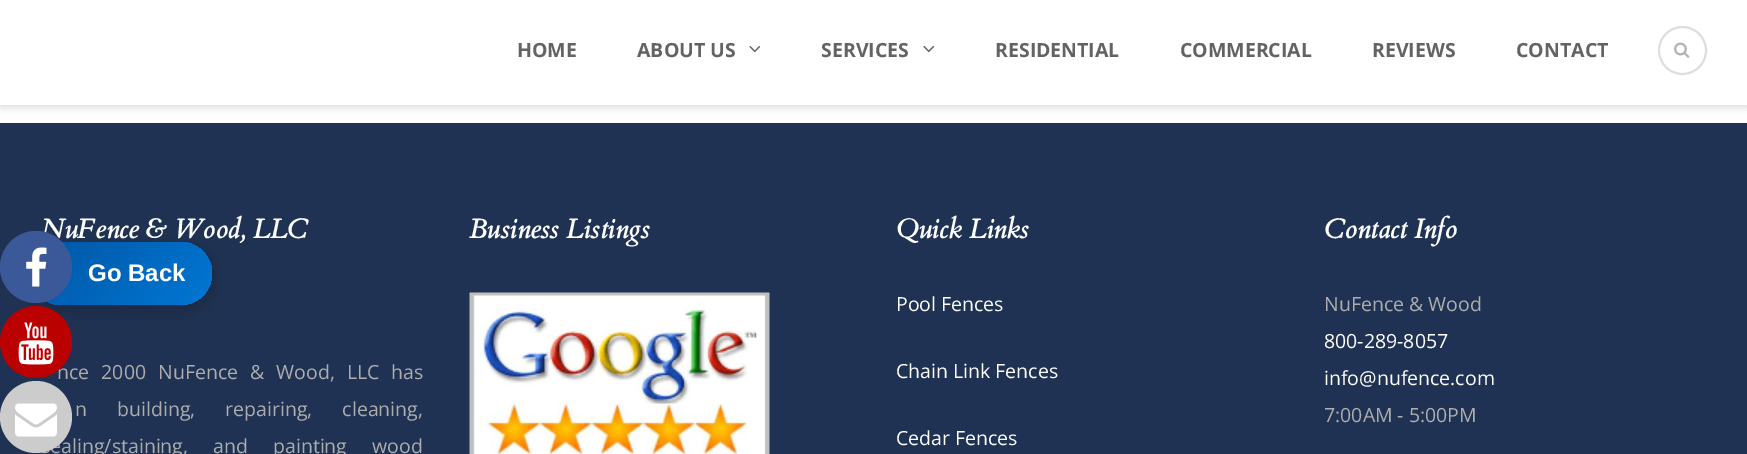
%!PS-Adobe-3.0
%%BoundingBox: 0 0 1747 454
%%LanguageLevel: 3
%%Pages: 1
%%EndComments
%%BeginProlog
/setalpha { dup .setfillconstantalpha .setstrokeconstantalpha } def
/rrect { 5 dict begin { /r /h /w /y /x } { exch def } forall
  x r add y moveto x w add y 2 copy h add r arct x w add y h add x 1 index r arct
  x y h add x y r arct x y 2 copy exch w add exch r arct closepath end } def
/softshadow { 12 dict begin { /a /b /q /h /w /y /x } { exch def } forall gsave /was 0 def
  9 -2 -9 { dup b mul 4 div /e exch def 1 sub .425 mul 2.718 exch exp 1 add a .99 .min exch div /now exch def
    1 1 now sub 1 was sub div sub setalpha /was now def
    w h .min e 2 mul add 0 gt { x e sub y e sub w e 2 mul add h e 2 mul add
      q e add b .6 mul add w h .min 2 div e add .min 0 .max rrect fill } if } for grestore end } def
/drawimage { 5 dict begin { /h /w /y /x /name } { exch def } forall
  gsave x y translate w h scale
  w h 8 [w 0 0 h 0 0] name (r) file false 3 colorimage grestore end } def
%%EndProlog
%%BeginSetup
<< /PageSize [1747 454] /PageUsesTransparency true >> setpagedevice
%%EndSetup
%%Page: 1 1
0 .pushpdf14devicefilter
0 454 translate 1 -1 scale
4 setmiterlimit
1 setgray
0 0 1747 454 rectfill
0 setgray
0 2 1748 105 0 4.5 0.15 softshadow
1 setgray
0 0 1747 105 rectfill
(images/1.raw) 749 45 12 8 drawimage
(images/1.raw) 923 45 12 8 drawimage
0.871 setgray
2 setlinewidth
newpath 1682.5 50.5 23.5 0 360 arc closepath stroke
(images/2.raw) 1674 42 16 16 drawimage
0.122 0.196 0.325 setrgbcolor
0 123 1747 331 rectfill
(images/6.raw) 469 292 301 162 drawimage
0 setgray
30 248 182 63 31.5 9 0.2 softshadow
/OpenSans-Bold [19.5 0 0 -19.5 0 0] selectfont
0.392 0.388 0.388 setrgbcolor
517 57 moveto (HOME) show
637 57 moveto (ABOUT US) show
821 57 moveto (SERVICES) show
995 57 moveto (RESIDENTIAL) show
1180 57 moveto (COMMERCIAL) show
1372 57 moveto (REVIEWS) show
1516 57 moveto (CONTACT) show
/Cardo-BoldItalic [27 0 0 -27 0 0] selectfont
1 setgray
41 238 moveto (NuFence & Wood, LLC) show
/OpenSans-Regular [19.5 0 0 -19.5 0 0] selectfont
0.678 setgray
57 379 moveto 7 0 32 (nce 2000 NuFence & Wood, LLC has) widthshow
0.733 0 0 setrgbcolor
newpath 36 342 36 0 360 arc closepath fill
(images/4.raw) 18 322 36 43 drawimage
0.678 setgray
75 416 moveto 25 0 32 (n building, repairing, cleaning,) widthshow
41 453 moveto 20 0 32 (sealing/staining, and painting wood) widthshow
0.8 setgray
newpath 36 417 36 0 360 arc closepath fill
(images/5.raw) 15 403 42 34 drawimage
/Cardo-BoldItalic [27 0 0 -27 0 0] selectfont
1 setgray
469 238 moveto (Business Listings) show
896 238 moveto (Quick Links) show
/OpenSans-Regular [19.5 0 0 -19.5 0 0] selectfont
896 311 moveto (Pool Fences) show
896 378 moveto (Chain Link Fences) show
896 445 moveto (Cedar Fences) show
/Cardo-BoldItalic [27 0 0 -27 0 0] selectfont
1324 238 moveto (Contact Info) show
/OpenSans-Regular [19.5 0 0 -19.5 0 0] selectfont
0.678 setgray
1324 311 moveto (NuFence & Wood) show
1 setgray
1324 348 moveto (800-289-8057) show
1324 385 moveto (info@nufence.com) show
0.678 setgray
1324 422 moveto (7:00AM - 5:00PM) show
gsave 30 242 182 63 31.5 rrect clip newpath
<< /ShadingType 2 /ColorSpace /DeviceRGB /Coords [60 212 182 334] /Extend [true true] /Function << /FunctionType 2 /Domain [0 1] /C0 [0 0.333 0.647] /C1 [0 0.471 0.831] /N 1 >> >> shfill grestore
0.231 0.349 0.596 setrgbcolor
newpath 36 267 36 0 360 arc closepath fill
(images/3.raw) 26 247 21 40 drawimage
/LiberationSans-Bold [24 0 0 -24 0 0] selectfont
1 setgray
88 281 moveto (Go Back) show
.poppdf14devicefilter showpage
%%EOF
